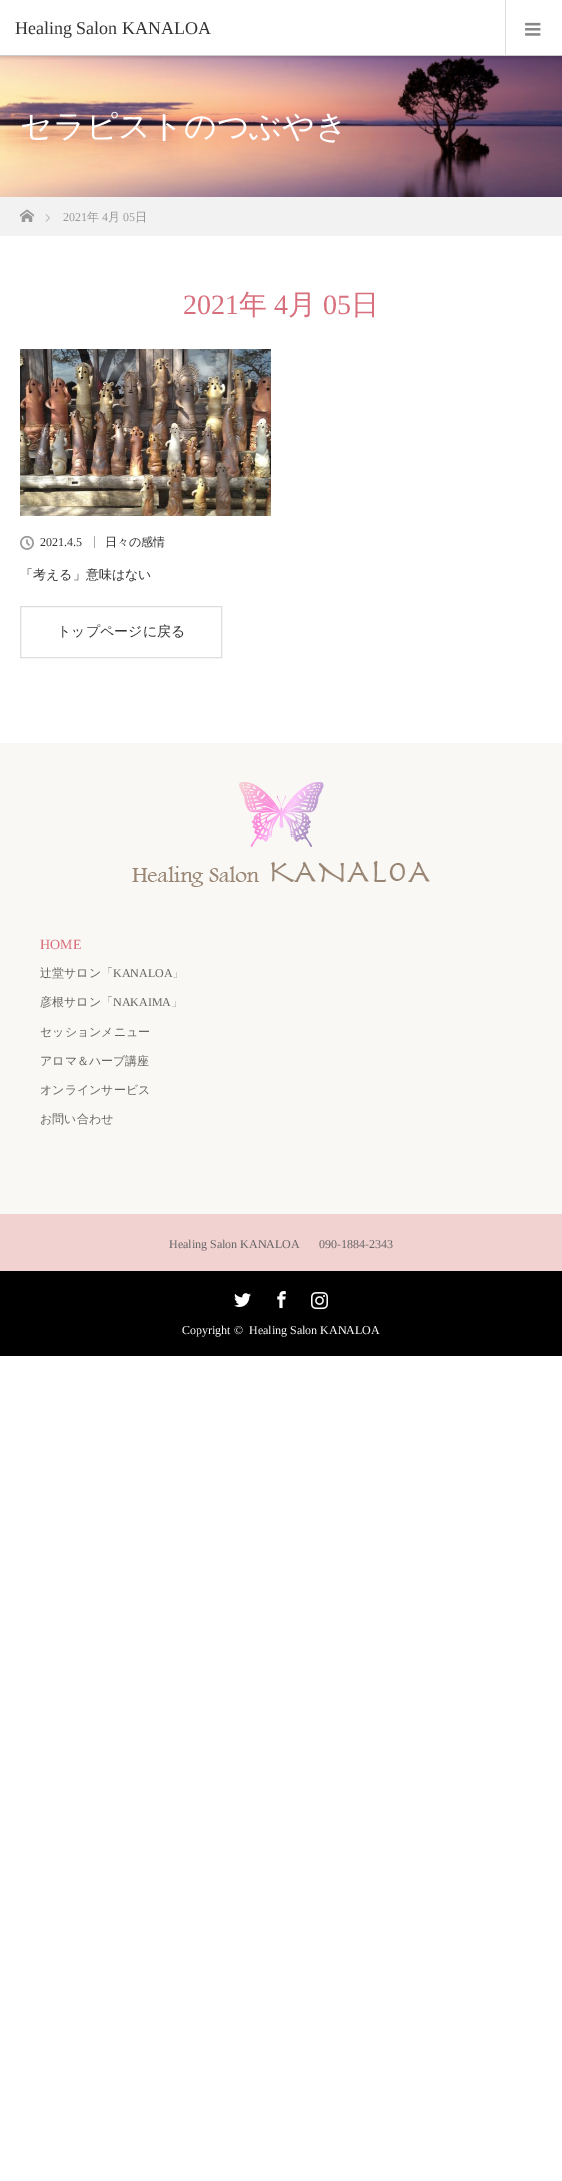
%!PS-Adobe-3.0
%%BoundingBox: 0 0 562 2181
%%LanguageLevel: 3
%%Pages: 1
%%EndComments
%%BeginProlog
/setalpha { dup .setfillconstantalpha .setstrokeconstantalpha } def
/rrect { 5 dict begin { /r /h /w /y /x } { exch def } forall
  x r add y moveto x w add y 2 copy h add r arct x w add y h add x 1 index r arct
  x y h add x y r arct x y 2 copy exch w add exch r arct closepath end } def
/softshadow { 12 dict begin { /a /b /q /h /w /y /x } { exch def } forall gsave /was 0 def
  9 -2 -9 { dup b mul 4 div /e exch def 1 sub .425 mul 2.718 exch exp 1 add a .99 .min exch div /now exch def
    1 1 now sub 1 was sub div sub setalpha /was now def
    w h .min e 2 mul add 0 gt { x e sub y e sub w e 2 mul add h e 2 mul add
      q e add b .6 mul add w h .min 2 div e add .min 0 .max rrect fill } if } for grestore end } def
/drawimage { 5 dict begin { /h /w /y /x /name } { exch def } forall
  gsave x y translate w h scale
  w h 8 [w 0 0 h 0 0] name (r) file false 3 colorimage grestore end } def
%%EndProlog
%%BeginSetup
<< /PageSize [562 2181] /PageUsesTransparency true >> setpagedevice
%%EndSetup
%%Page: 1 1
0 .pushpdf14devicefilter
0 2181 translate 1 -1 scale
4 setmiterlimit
1 setgray
0 0 562 2181 rectfill
(images/2.raw) 0 56 562 141 drawimage
gsave
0 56 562 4 rectclip
0 setgray
0 1 562 56 0 2 0.2 softshadow
grestore
0.8 setgray
0 55 562 1 rectfill
0.867 setgray
505 0 1 56 rectfill
(images/1.raw) 525 22 16 14 drawimage
0.949 setgray
0 197 562 39 rectfill
(images/3.raw) 20 209 14 13 drawimage
(images/4.raw) 45 214 5 8 drawimage
(images/5.raw) 20 349 251 167 drawimage
(images/6.raw) 20 535 14 15 drawimage
0.667 setgray
94 536 1 12 rectfill
0.867 setgray
20.5 606.5 201 51 rectstroke
0.976 0.973 0.957 setrgbcolor
0 743 562 471 rectfill
(images/7.raw) 132 782 298 105 drawimage
0.949 0.824 0.816 setrgbcolor
0 1214 562 57 rectfill
0 setgray
0 1271 562 85 rectfill
(images/8.raw) 234 1293 17 14 drawimage
(images/9.raw) 277 1291 9 18 drawimage
(images/10.raw) 311 1292 17 18 drawimage
/LiberationSerif-Regular [18 0 0 -18 0 0] selectfont
0.2 setgray
15 34 moveto (Healing Salon KANALOA) show
/WenQuanYiZenHei-Medium [32 0 0 -32 0 0] selectfont
1 setgray
20 137 moveto (セラピストのつぶやき) show
/LiberationSerif-Regular [12 0 0 -12 0 0] selectfont
0.6 setgray
63 221 moveto (2021) show
/WenQuanYiZenHei-Medium [12 0 0 -12 0 0] selectfont
87 221 moveto (年) show
/LiberationSerif-Regular [12 0 0 -12 0 0] selectfont
102 221 moveto (4) show
/WenQuanYiZenHei-Medium [12 0 0 -12 0 0] selectfont
108 221 moveto (月) show
/LiberationSerif-Regular [12 0 0 -12 0 0] selectfont
123 221 moveto (05) show
/WenQuanYiZenHei-Medium [12 0 0 -12 0 0] selectfont
135 221 moveto (日) show
/LiberationSerif-Regular [28 0 0 -28 0 0] selectfont
0.847 0.435 0.486 setrgbcolor
183 314 moveto (2021) show
/WenQuanYiZenHei-Medium [28 0 0 -28 0 0] selectfont
239 314 moveto (年) show
/LiberationSerif-Regular [28 0 0 -28 0 0] selectfont
274 314 moveto (4) show
/WenQuanYiZenHei-Medium [28 0 0 -28 0 0] selectfont
288 314 moveto (月) show
/LiberationSerif-Regular [28 0 0 -28 0 0] selectfont
323 314 moveto (05) show
/WenQuanYiZenHei-Medium [28 0 0 -28 0 0] selectfont
351 314 moveto (日) show
/LiberationSerif-Regular [12 0 0 -12 0 0] selectfont
0.2 setgray
40 546 moveto (2021.4.5) show
/WenQuanYiZenHei-Medium [12 0 0 -12 0 0] selectfont
105 546 moveto (日々の感情) show
/WenQuanYiZenHei-Medium [13 0 0 -13 0 0] selectfont
20 579 moveto (「考える」意味はない) show
/WenQuanYiZenHei-Medium [14 0 0 -14 0 0] selectfont
57 636 moveto (トップページに戻る) show
/LiberationSerif-Regular [14 0 0 -14 0 0] selectfont
0.847 0.435 0.486 setrgbcolor
40 949 moveto (HOME) show
/WenQuanYiZenHei-Medium [12 0 0 -12 0 0] selectfont
0.4 setgray
40 977 moveto (辻堂サロン「) show
/LiberationSerif-Regular [12 0 0 -12 0 0] selectfont
113 977 moveto (KANALOA) show
/WenQuanYiZenHei-Medium [12 0 0 -12 0 0] selectfont
172 977 moveto (」) show
40 1006 moveto (彦根サロン「) show
/LiberationSerif-Regular [12 0 0 -12 0 0] selectfont
113 1006 moveto (NAKAIMA) show
/WenQuanYiZenHei-Medium [12 0 0 -12 0 0] selectfont
171 1006 moveto (」) show
40 1036 moveto (セッションメニュー) show
40 1065 moveto (アロマ＆ハーブ講座) show
40 1094 moveto (オンラインサービス) show
40 1123 moveto (お問い合わせ) show
/LiberationSerif-Regular [12 0 0 -12 0 0] selectfont
169 1248 moveto (Healing Salon KANALOA) show
319 1248 moveto (090-1884-2343) show
1 setgray
182 1334 moveto (Copyright ©) show
249 1334 moveto (Healing Salon KANALOA) show
.poppdf14devicefilter showpage
%%EOF
